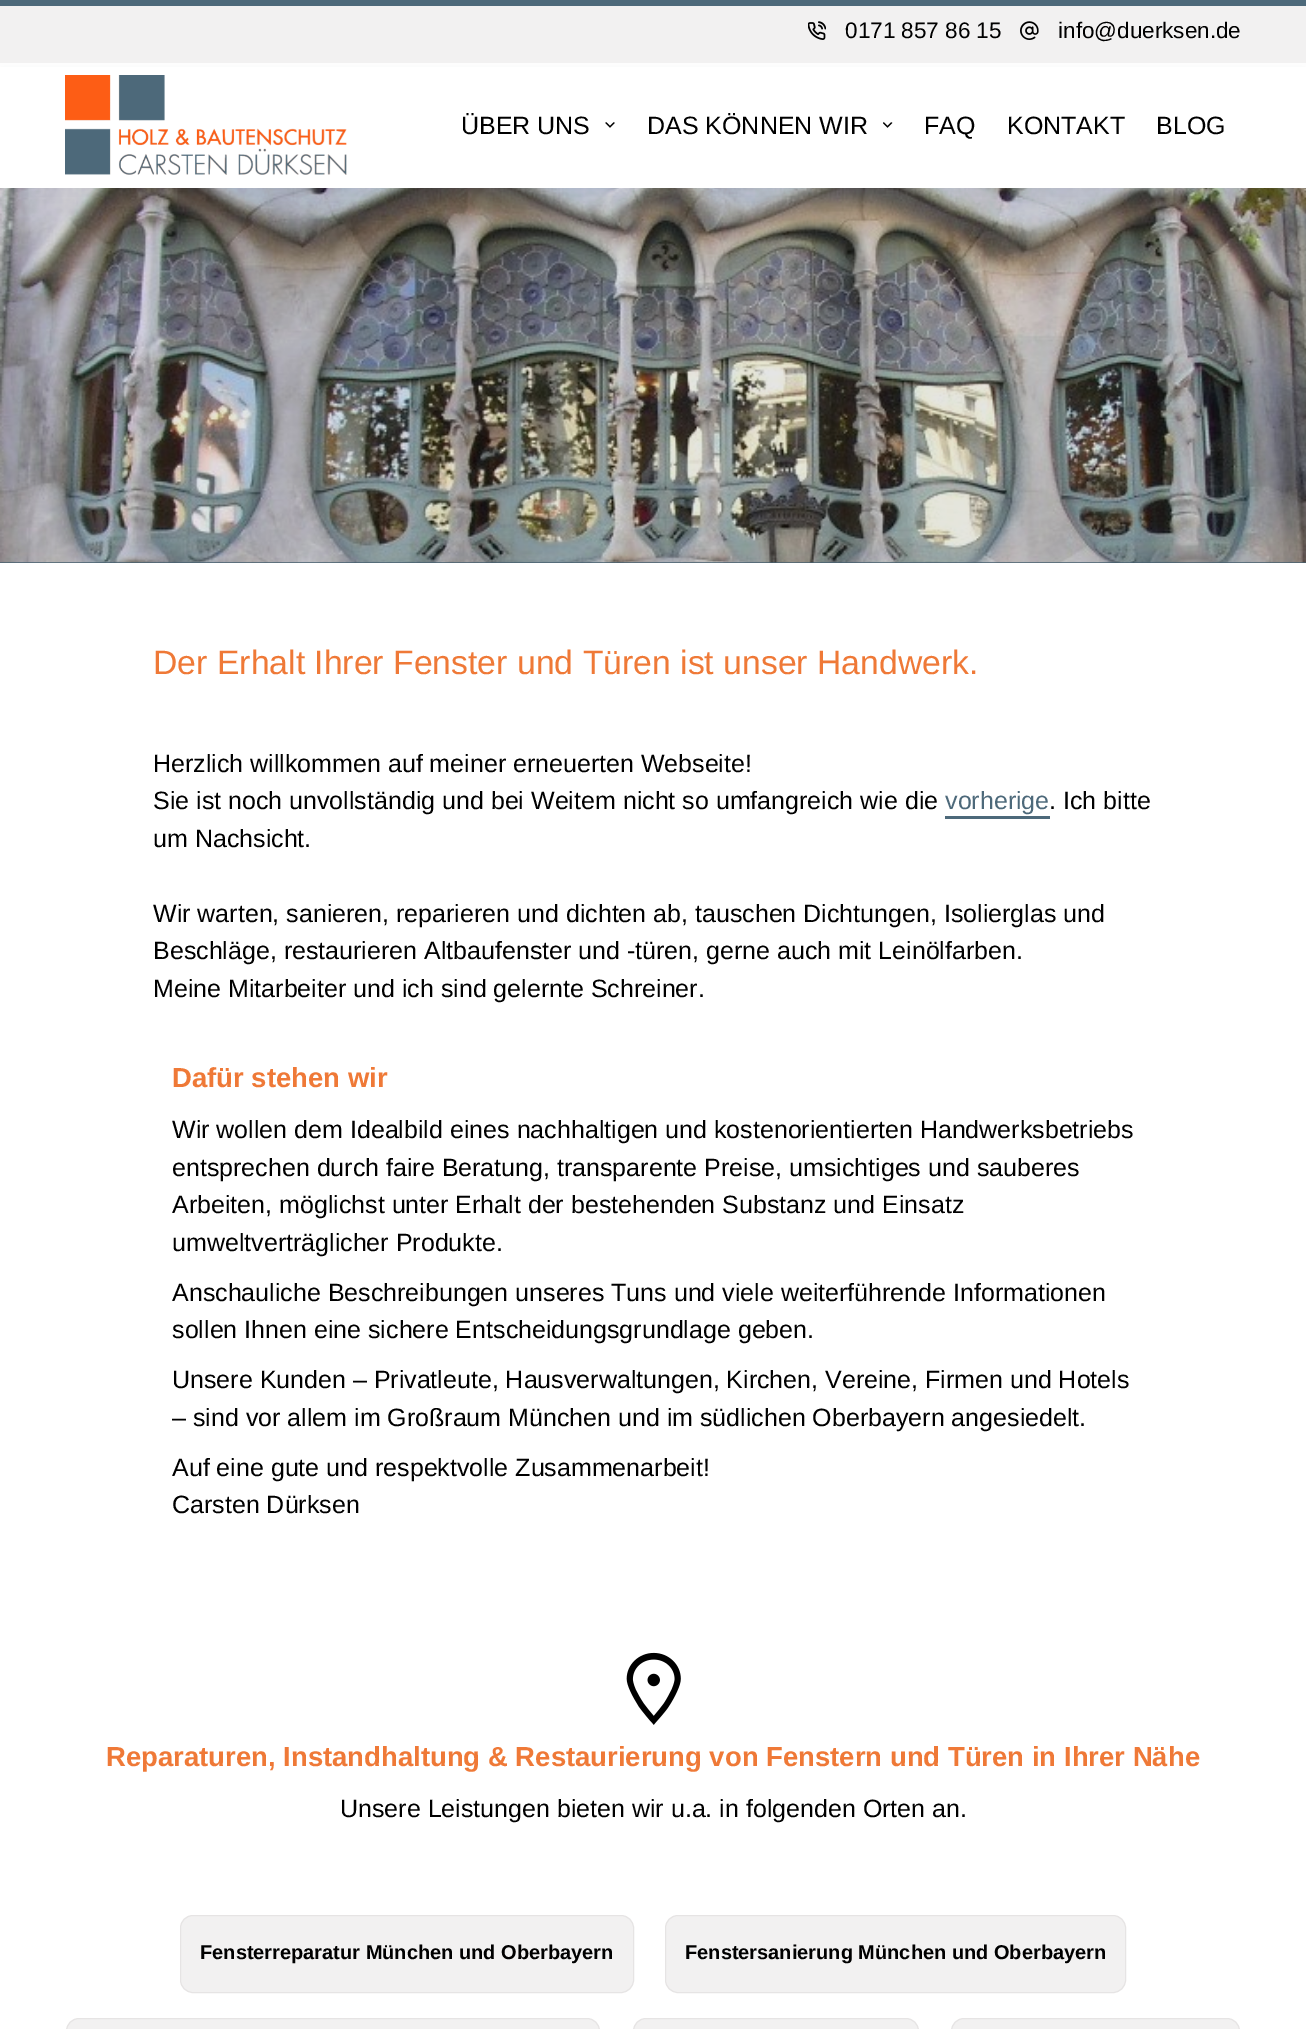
%!PS-Adobe-3.0
%%BoundingBox: 0 0 1306 2029
%%LanguageLevel: 3
%%Pages: 1
%%EndComments
%%BeginProlog
/setalpha { dup .setfillconstantalpha .setstrokeconstantalpha } def
/rrect { 5 dict begin { /r /h /w /y /x } { exch def } forall
  x r add y moveto x w add y 2 copy h add r arct x w add y h add x 1 index r arct
  x y h add x y r arct x y 2 copy exch w add exch r arct closepath end } def
/softshadow { 12 dict begin { /a /b /q /h /w /y /x } { exch def } forall gsave /was 0 def
  9 -2 -9 { dup b mul 4 div /e exch def 1 sub .425 mul 2.718 exch exp 1 add a .99 .min exch div /now exch def
    1 1 now sub 1 was sub div sub setalpha /was now def
    w h .min e 2 mul add 0 gt { x e sub y e sub w e 2 mul add h e 2 mul add
      q e add b .6 mul add w h .min 2 div e add .min 0 .max rrect fill } if } for grestore end } def
/drawimage { 5 dict begin { /h /w /y /x /name } { exch def } forall
  gsave x y translate w h scale
  w h 8 [w 0 0 h 0 0] name (r) file false 3 colorimage grestore end } def
%%EndProlog
%%BeginSetup
<< /PageSize [1306 2029] /PageUsesTransparency true >> setpagedevice
%%EndSetup
%%Page: 1 1
0 .pushpdf14devicefilter
0 2029 translate 1 -1 scale
4 setmiterlimit
1 setgray
0 0 1306 2029 rectfill
0.302 0.412 0.478 setrgbcolor
0 0 1306 6 rectfill
0.271 0.373 0.431 setrgbcolor
0 562 1306 1 rectfill
(images/6.raw) 0 188 1306 375 drawimage
0.173 0.243 0.314 setrgbcolor
0 75 1306 125 0 12.5 0.05 softshadow
0.949 0.945 0.945 setrgbcolor
0 6 1306 57 rectfill
(images/1.raw) 808 21 18 19 drawimage
(images/2.raw) 1020 21 19 19 drawimage
1 setgray
0 67 1306 121 rectfill
(images/3.raw) 65 75 282 100 drawimage
(images/4.raw) 605 122 10 6 drawimage
(images/5.raw) 883 122 10 6 drawimage
0.302 0.412 0.478 setrgbcolor
945 816 105 3 rectfill
(images/7.raw) 626 1652 55 73 drawimage
0.949 0.945 0.945 setrgbcolor
180.5 1915.5 453 77 12.5 rrect gsave fill grestore
0.902 0.894 0.894 setrgbcolor
stroke
0.949 0.945 0.945 setrgbcolor
665.5 1915.5 460 77 12.5 rrect gsave fill grestore
0.902 0.894 0.894 setrgbcolor
stroke
0.949 0.945 0.945 setrgbcolor
66.5 2018.5 533 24 12.5 rrect gsave fill grestore
0.902 0.894 0.894 setrgbcolor
stroke
0.949 0.945 0.945 setrgbcolor
633.5 2018.5 285 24 12.5 rrect gsave fill grestore
0.902 0.894 0.894 setrgbcolor
stroke
0.949 0.945 0.945 setrgbcolor
951.5 2018.5 288 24 12.5 rrect gsave fill grestore
0.902 0.894 0.894 setrgbcolor
stroke
/LiberationSans-Regular [22.5 0 0 -22.5 0 0] selectfont
0 setgray
845 38 moveto (0171 857 86 15) show
1058 38 moveto (info@duerksen.de) show
/LiberationSans-Regular [25 0 0 -25 0 0] selectfont
461 134 moveto (ÜBER UNS) show
647 134 moveto (DAS KÖNNEN WIR) show
924 134 moveto (FAQ) show
1007 134 moveto (KONTAKT) show
1156 134 moveto (BLOG) show
/LiberationSans-Regular [33.75 0 0 -33.75 0 0] selectfont
0.937 0.475 0.216 setrgbcolor
153 674 moveto (Der Erhalt Ihrer Fenster und Türen ist unser Handwerk.) show
/LiberationSans-Regular [25 0 0 -25 0 0] selectfont
0 setgray
153 772 moveto (Herzlich willkommen auf meiner erneuerten Webseite!) show
153 809 moveto (Sie ist noch unvollständig und bei Weitem nicht so umfangreich wie die) show
0.302 0.412 0.478 setrgbcolor
945 809 moveto (vorherige) show
0 setgray
1049 809 moveto (. Ich bitte) show
153 847 moveto (um Nachsicht.) show
153 922 moveto (Wir warten, sanieren, reparieren und dichten ab, tauschen Dichtungen, Isolierglas und) show
153 959 moveto (Beschläge, restaurieren Altbaufenster und -türen, gerne auch mit Leinölfarben.) show
153 997 moveto (Meine Mitarbeiter und ich sind gelernte Schreiner.) show
/LiberationSans-Bold [27.5 0 0 -27.5 0 0] selectfont
0.937 0.475 0.216 setrgbcolor
172 1087 moveto (Dafür stehen wir) show
/LiberationSans-Regular [25 0 0 -25 0 0] selectfont
0 setgray
172 1138 moveto (Wir wollen dem Idealbild eines nachhaltigen und kostenorientierten Handwerksbetriebs) show
172 1176 moveto (entsprechen durch faire Beratung, transparente Preise, umsichtiges und sauberes) show
172 1213 moveto (Arbeiten, möglichst unter Erhalt der bestehenden Substanz und Einsatz) show
172 1251 moveto (umweltverträglicher Produkte.) show
172 1301 moveto (Anschauliche Beschreibungen unseres Tuns und viele weiterführende Informationen) show
172 1338 moveto (sollen Ihnen eine sichere Entscheidungsgrundlage geben.) show
172 1388 moveto (Unsere Kunden – Privatleute, Hausverwaltungen, Kirchen, Vereine, Firmen und Hotels) show
172 1426 moveto (– sind vor allem im Großraum München und im südlichen Oberbayern angesiedelt.) show
172 1476 moveto (Auf eine gute und respektvolle Zusammenarbeit!) show
172 1513 moveto (Carsten Dürksen) show
/LiberationSans-Bold [27.5 0 0 -27.5 0 0] selectfont
0.937 0.475 0.216 setrgbcolor
106 1766 moveto (Reparaturen, Instandhaltung & Restaurierung von Fenstern und Türen in Ihrer Nähe) show
/LiberationSans-Regular [25 0 0 -25 0 0] selectfont
0 setgray
340 1817 moveto (Unsere Leistungen bieten wir u.a. in folgenden Orten an.) show
/LiberationSans-Bold [20 0 0 -20 0 0] selectfont
200 1959 moveto (Fensterreparatur München und Oberbayern) show
685 1959 moveto (Fenstersanierung München und Oberbayern) show
.poppdf14devicefilter showpage
%%EOF
